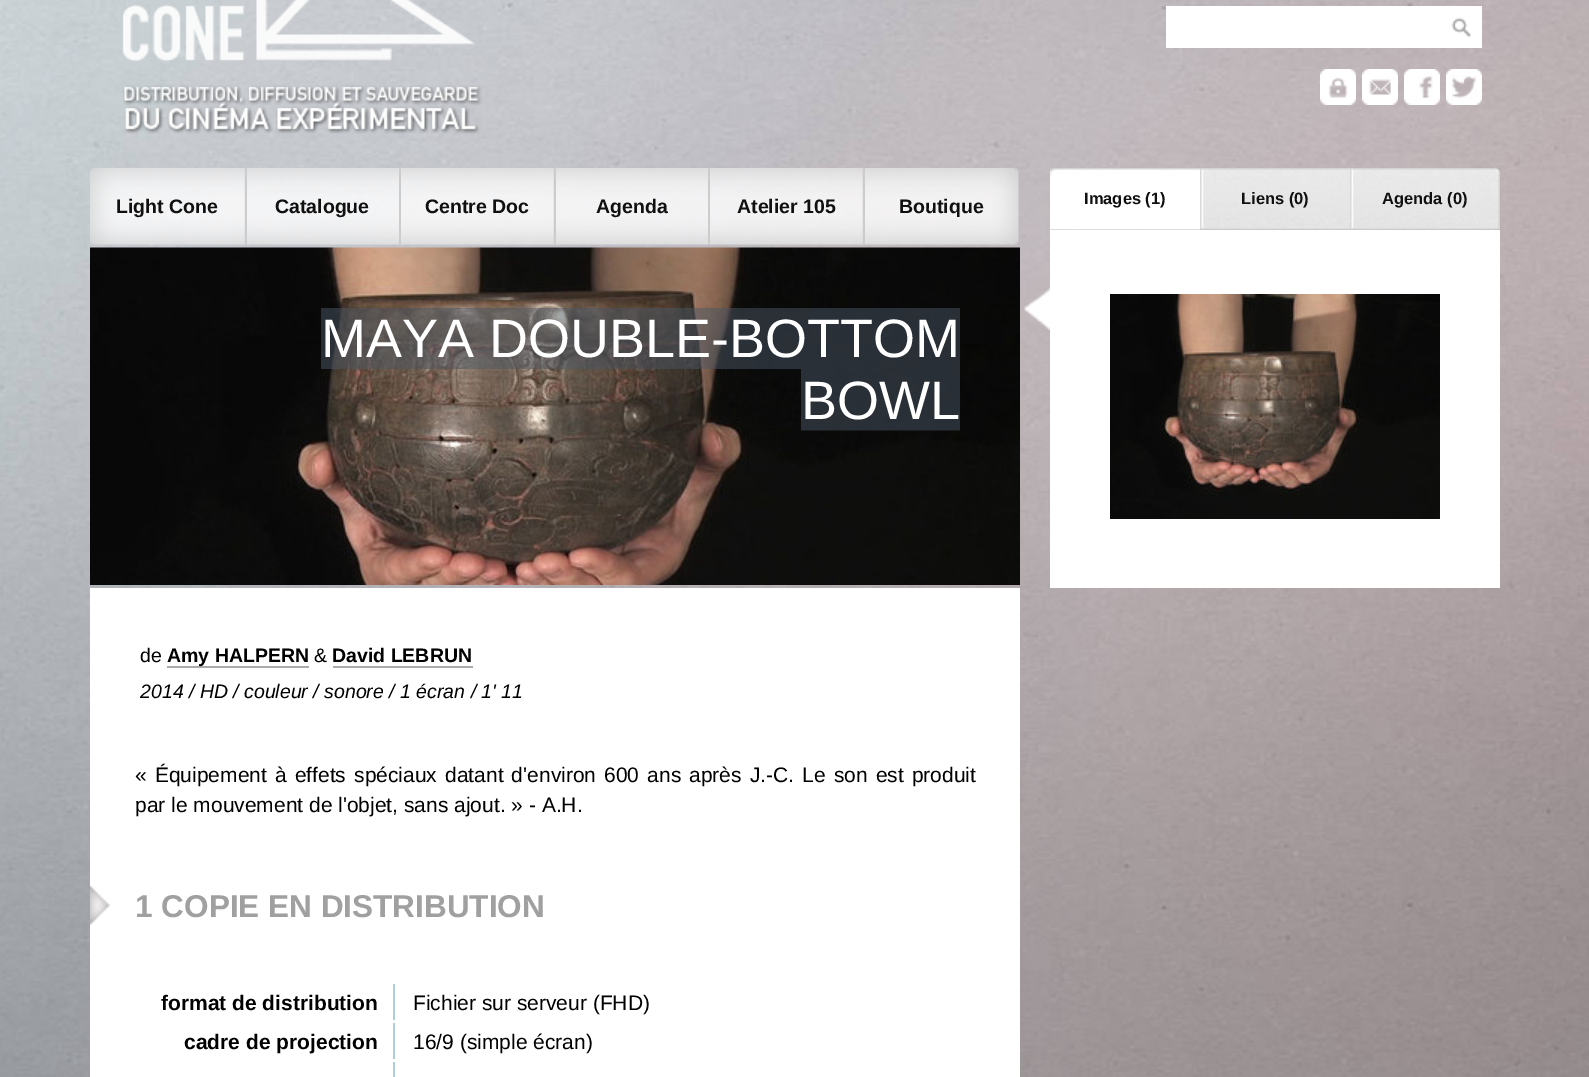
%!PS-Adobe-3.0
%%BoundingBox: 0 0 1589 1077
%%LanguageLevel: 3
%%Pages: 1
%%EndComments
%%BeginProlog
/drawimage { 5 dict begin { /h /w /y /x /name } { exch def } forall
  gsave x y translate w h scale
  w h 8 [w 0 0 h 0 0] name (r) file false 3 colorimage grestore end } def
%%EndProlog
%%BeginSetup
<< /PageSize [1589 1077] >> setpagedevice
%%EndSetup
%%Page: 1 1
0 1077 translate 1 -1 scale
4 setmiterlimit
1 setgray
0 0 1589 1077 rectfill
(images/1.raw) 0 0 1589 1077 drawimage
(images/2.raw) 122 0 360 134 drawimage
1166 6 316 42 rectfill
(images/3.raw) 1451 17 21 21 drawimage
(images/4.raw) 1320 69 36 36 drawimage
(images/5.raw) 1362 69 36 36 drawimage
(images/6.raw) 1404 69 36 36 drawimage
(images/7.raw) 1446 69 36 36 drawimage
(images/8.raw) 90 168 155 77 drawimage
(images/9.raw) 244 168 155 77 drawimage
0.8 setgray
245 168 2 77 rectfill
(images/10.raw) 401 168 153 77 drawimage
399 168 2 77 rectfill
(images/11.raw) 553 168 155 77 drawimage
554 168 2 77 rectfill
(images/12.raw) 710 168 153 77 drawimage
708 168 2 77 rectfill
(images/13.raw) 862 168 157 77 drawimage
863 168 2 77 rectfill
(images/14.raw) 1024 288 26 42 drawimage
(images/15.raw) 1050 168 150 62 drawimage
(images/16.raw) 1200 168 150 62 drawimage
(images/17.raw) 1350 168 150 62 drawimage
1 setgray
1050 230 450 358 rectfill
(images/18.raw) 1110 294 330 225 drawimage
(images/19.raw) 90 247 930 338 drawimage
(images/20.raw) 321 308 639 123 drawimage
90 588 930 489 rectfill
0.667 setgray
167 666 142 2 rectfill
333 666 140 2 rectfill
(images/21.raw) 90 885 20 41 drawimage
0.663 0.816 0.847 setrgbcolor
393 984 2 36 rectfill
393 1023 2 36 rectfill
393 1062 2 15 rectfill
/LiberationSans-Bold [19.5 0 0 -19.5 0 0] selectfont
0.063 setgray
116 213 moveto (Light Cone) show
275 213 moveto (Catalogue) show
425 213 moveto (Centre Doc) show
596 213 moveto (Agenda) show
737 213 moveto (Atelier 105) show
899 213 moveto (Boutique) show
/LiberationSans-Bold [16.5 0 0 -16.5 0 0] selectfont
1084 204 moveto (Images \(1\)) show
1241 204 moveto (Liens \(0\)) show
1382 204 moveto (Agenda \(0\)) show
/LiberationSans-Regular [54 0 0 -54 0 0] selectfont
1 setgray
321 357 moveto (MAYA DOUBLE-BOTTOM) show
801 419 moveto (BOWL) show
/LiberationSans-Regular [19.5 0 0 -19.5 0 0] selectfont
0 setgray
140 662 moveto (de) show
/LiberationSans-Bold [19.5 0 0 -19.5 0 0] selectfont
167 662 moveto (Amy HALPERN) show
/LiberationSans-Regular [19.5 0 0 -19.5 0 0] selectfont
314 662 moveto (&) show
/LiberationSans-Bold [19.5 0 0 -19.5 0 0] selectfont
332 662 moveto (David LEBRUN) show
/LiberationSans-Italic [19.5 0 0 -19.5 0 0] selectfont
140 698 moveto (2014 / HD / couleur / sonore / 1 écran / 1' 11) show
/LiberationSans-Regular [21 0 0 -21 0 0] selectfont
135 782 moveto 2.25 0 32 (« Équipement à effets spéciaux datant d'environ 600 ans après J.-C. Le son est produit) widthshow
135 812 moveto (par le mouvement de l'objet, sans ajout. » - A.H.) show
/LiberationSans-Bold [31.5 0 0 -31.5 0 0] selectfont
0.627 setgray
135 917 moveto (1 COPIE EN DISTRIBUTION) show
/LiberationSans-Bold [21 0 0 -21 0 0] selectfont
0 setgray
161 1010 moveto (format de distribution) show
/LiberationSans-Regular [21 0 0 -21 0 0] selectfont
413 1010 moveto (Fichier sur serveur \(FHD\)) show
/LiberationSans-Bold [21 0 0 -21 0 0] selectfont
184 1049 moveto (cadre de projection) show
/LiberationSans-Regular [21 0 0 -21 0 0] selectfont
413 1049 moveto (16/9 \(simple écran\)) show
showpage
%%EOF
